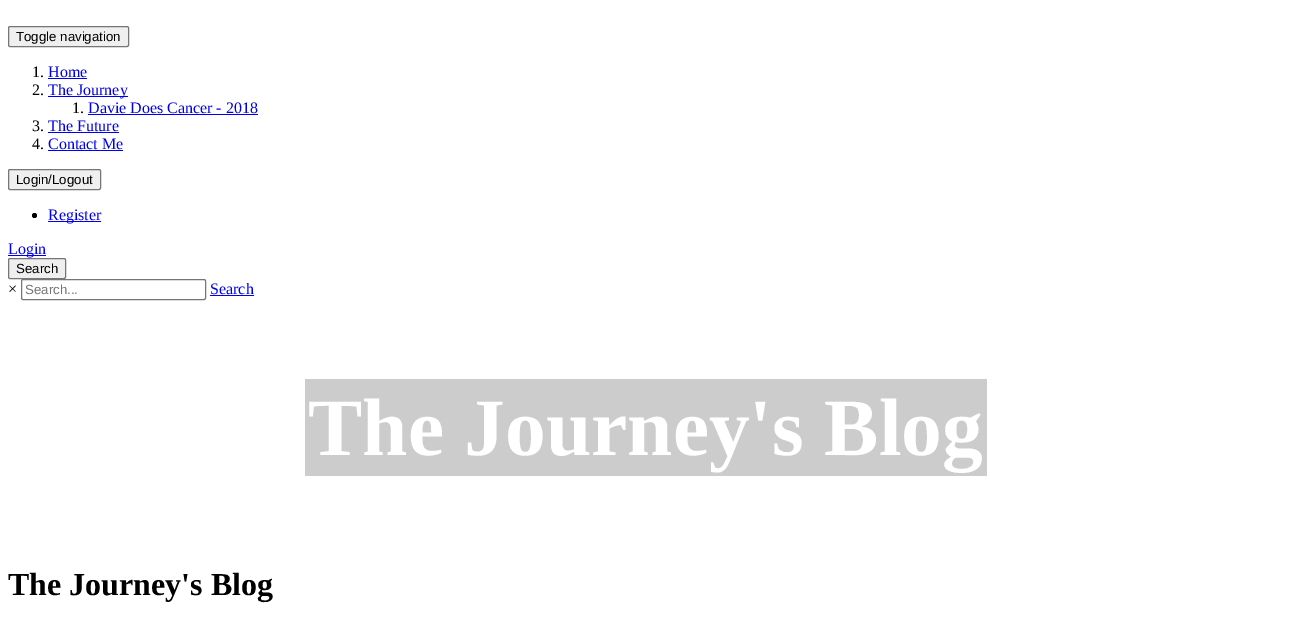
%!PS-Adobe-3.0
%%BoundingBox: 0 0 1292 636
%%LanguageLevel: 3
%%Pages: 1
%%EndComments
%%BeginProlog
/rrect { 5 dict begin { /r /h /w /y /x } { exch def } forall
  x r add y moveto x w add y 2 copy h add r arct x w add y h add x 1 index r arct
  x y h add x y r arct x y 2 copy exch w add exch r arct closepath end } def
%%EndProlog
%%BeginSetup
<< /PageSize [1292 636] >> setpagedevice
%%EndSetup
%%Page: 1 1
0 636 translate 1 -1 scale
4 setmiterlimit
1 setgray
0 0 1292 636 rectfill
0.937 setgray
8.5 26.5 120 20 1.5 rrect gsave fill grestore
0.463 setgray
stroke
0 0 0.933 setrgbcolor
48 78 39 1 rectfill
48 96 80 1 rectfill
88 114 170 1 rectfill
48 132 71 1 rectfill
48 150 75 1 rectfill
0.937 setgray
8.5 169.5 92 20 1.5 rrect gsave fill grestore
0.463 setgray
stroke
0 setgray
newpath 34.5 215.5 2.5 0 360 arc closepath fill
0 0 0.933 setrgbcolor
48 221 53 1 rectfill
8 255 38 1 rectfill
0.937 setgray
8.5 258.5 57 20 1.5 rrect gsave fill grestore
0.463 setgray
stroke
21.5 279.5 184 20 1.5 rrect stroke
0 0 0.933 setrgbcolor
210 295 44 1 rectfill
0.8 setgray
305 379 682 97 rectfill
/LiberationSans-Regular [13.25 0 0 -13.25 0 0] selectfont
0 setgray
16 41 moveto (Toggle navigation) show
/LiberationSerif-Regular [16 0 0 -16 0 0] selectfont
32 77 moveto (1.) show
0 0 0.933 setrgbcolor
48 77 moveto (Home) show
0 setgray
32 95 moveto (2.) show
0 0 0.933 setrgbcolor
48 95 moveto (The Journey) show
0 setgray
72 113 moveto (1.) show
0 0 0.933 setrgbcolor
88 113 moveto (Davie Does Cancer - 2018) show
0 setgray
32 131 moveto (3.) show
0 0 0.933 setrgbcolor
48 131 moveto (The Future) show
0 setgray
32 149 moveto (4.) show
0 0 0.933 setrgbcolor
48 149 moveto (Contact Me) show
/LiberationSans-Regular [13.25 0 0 -13.25 0 0] selectfont
0 setgray
16 184 moveto (Login/Logout) show
/LiberationSerif-Regular [16 0 0 -16 0 0] selectfont
0 0 0.933 setrgbcolor
48 220 moveto (Register) show
8 254 moveto (Login) show
/LiberationSans-Regular [13.25 0 0 -13.25 0 0] selectfont
0 setgray
16 273 moveto (Search) show
/LiberationSerif-Regular [16 0 0 -16 0 0] selectfont
8 294 moveto (×) show
/LiberationSans-Regular [13.25 0 0 -13.25 0 0] selectfont
0.459 setgray
25 294 moveto (Search...) show
/LiberationSerif-Regular [16 0 0 -16 0 0] selectfont
0 0 0.933 setrgbcolor
210 294 moveto (Search) show
/LiberationSerif-Bold [81.5 0 0 -81.5 0 0] selectfont
1 setgray
308 455 moveto (The Journey's Blog) show
/LiberationSerif-Bold [32 0 0 -32 0 0] selectfont
0 setgray
8 595 moveto (The Journey's Blog) show
showpage
%%EOF
